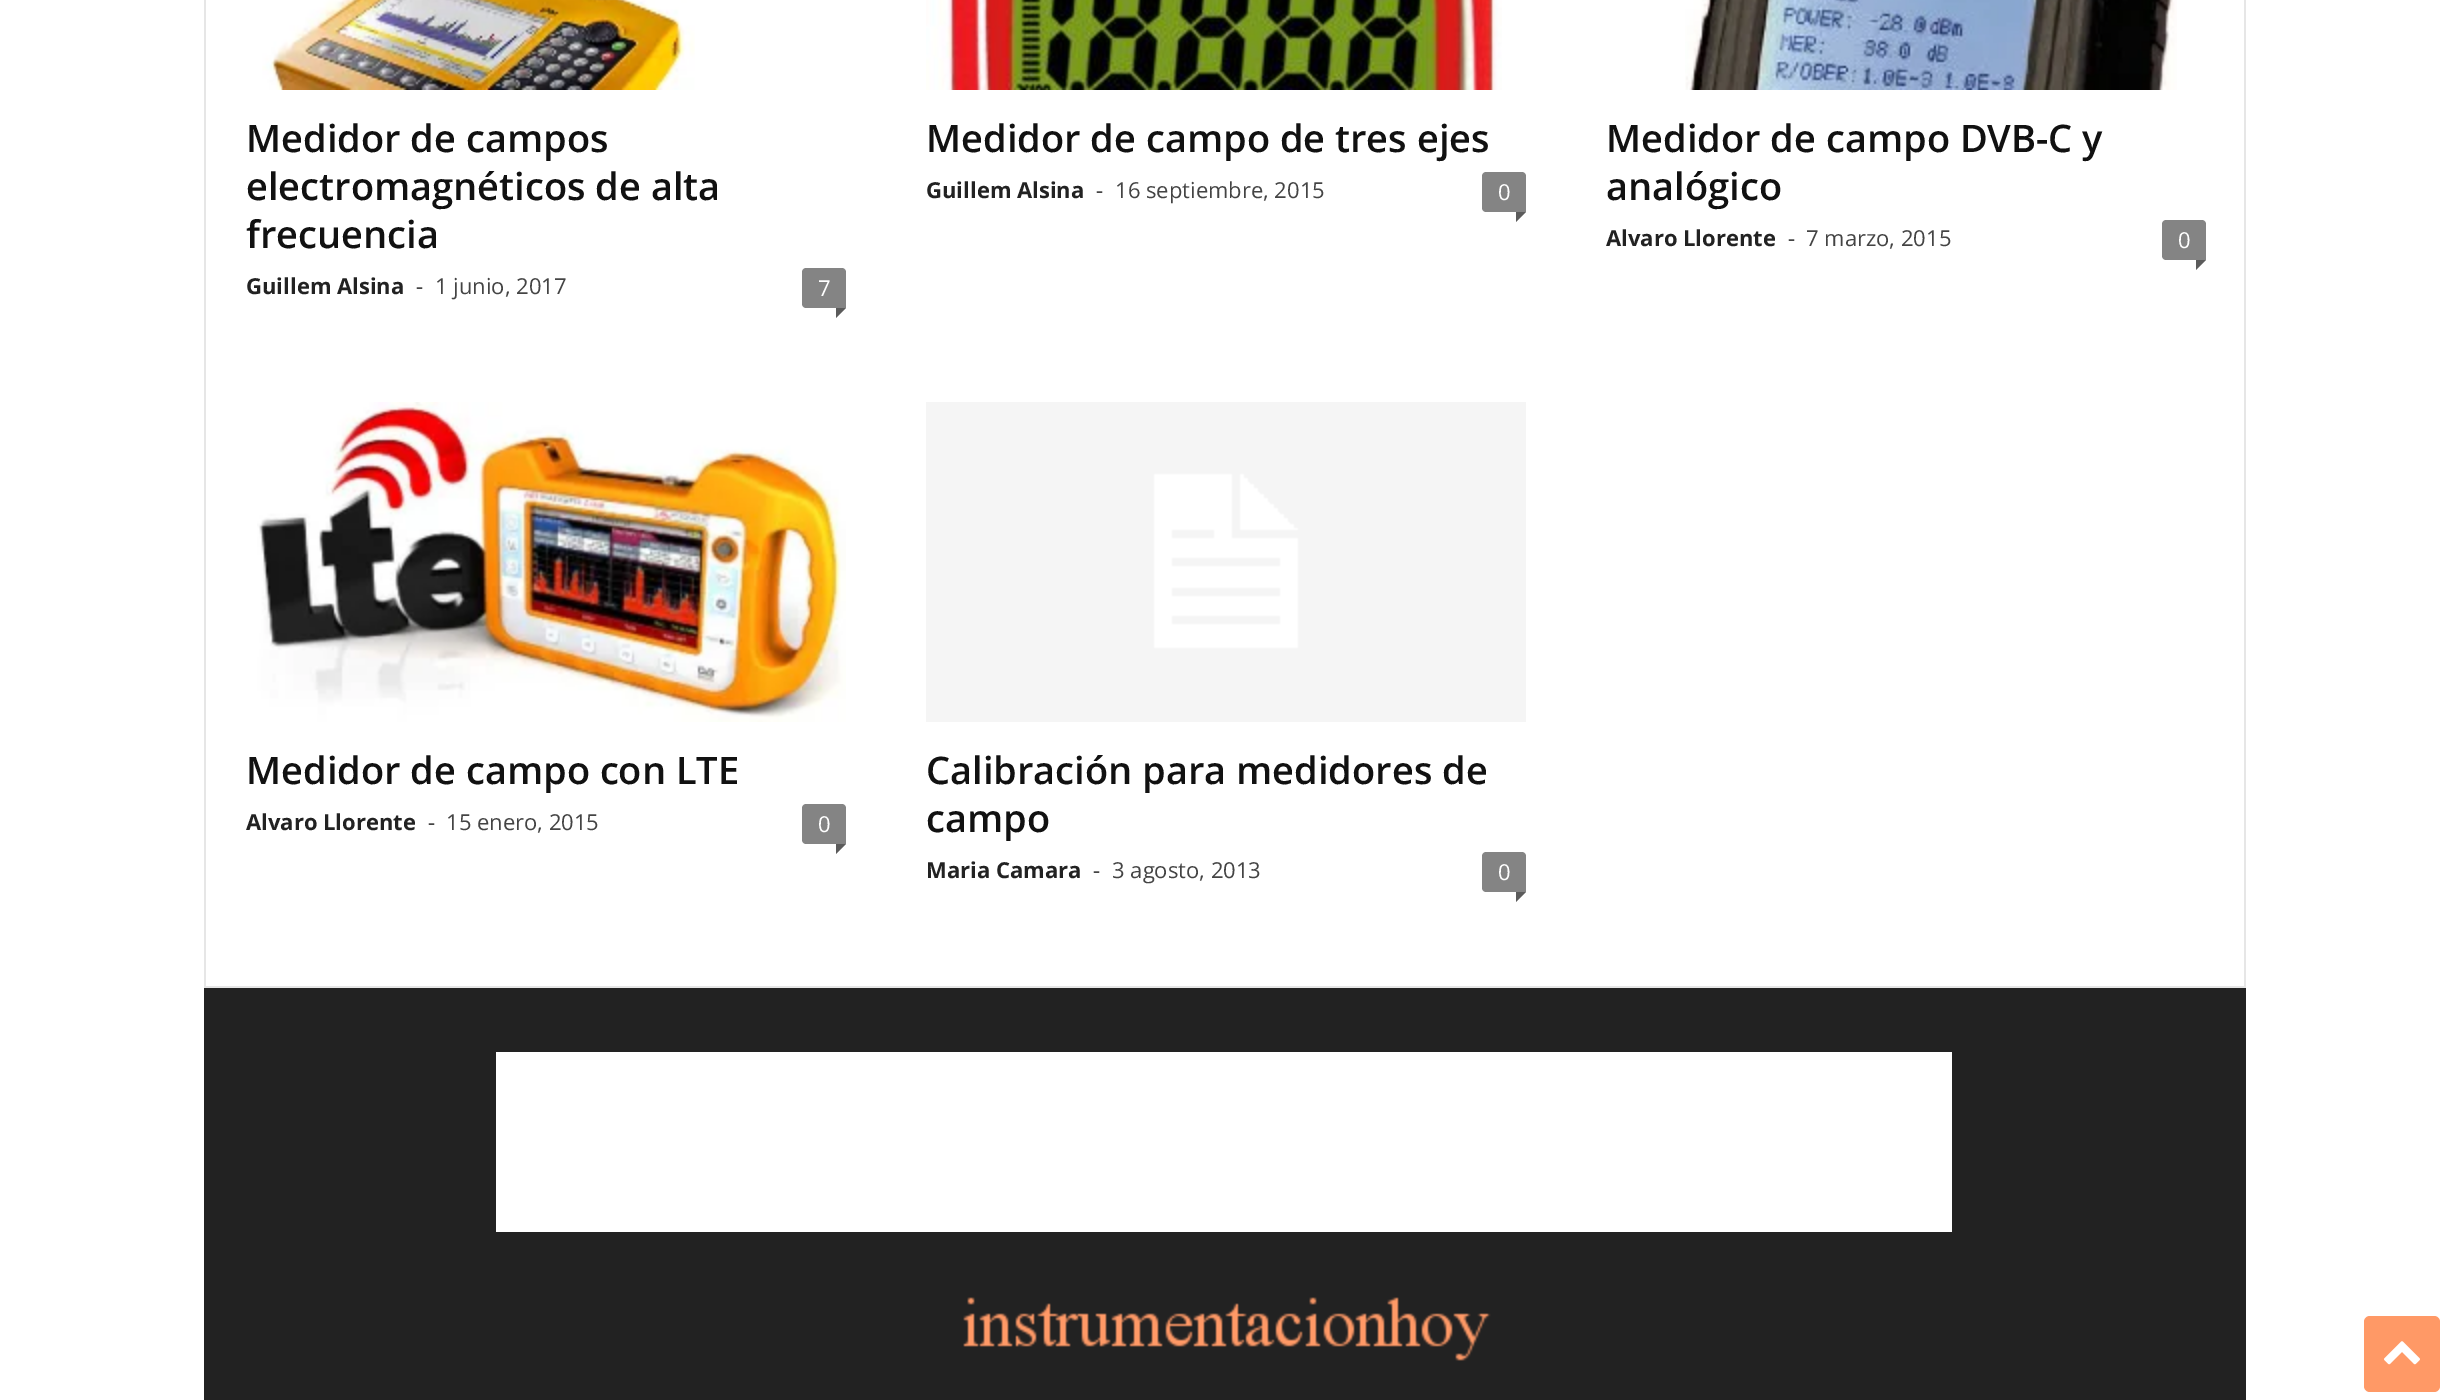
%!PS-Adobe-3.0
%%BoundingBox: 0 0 2449 1400
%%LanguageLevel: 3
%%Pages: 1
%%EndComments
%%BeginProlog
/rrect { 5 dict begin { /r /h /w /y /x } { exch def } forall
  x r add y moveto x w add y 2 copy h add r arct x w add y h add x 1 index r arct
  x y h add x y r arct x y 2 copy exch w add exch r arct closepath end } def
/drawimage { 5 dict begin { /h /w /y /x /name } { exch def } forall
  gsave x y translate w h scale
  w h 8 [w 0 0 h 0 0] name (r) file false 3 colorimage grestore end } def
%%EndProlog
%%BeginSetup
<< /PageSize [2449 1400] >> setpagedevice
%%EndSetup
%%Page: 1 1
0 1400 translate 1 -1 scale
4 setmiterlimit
1 setgray
0 0 2449 1400 rectfill
0.902 setgray
204 986 2042 2 rectfill
204 0 2 986 rectfill
(images/1.raw) 262 0 433 90 drawimage
0.518 setgray
newpath 806 268 moveto 842 268 lineto 844 268 846 270 846 272 curveto 846 308 lineto 806 308 lineto 804 308 802 306 802 304 curveto 802 272 lineto 802 270 804 268 806 268 curveto closepath fill
0.357 setgray
newpath 836 308 moveto 846 308 lineto 836 318 lineto closepath fill
(images/2.raw) 926 0 576 90 drawimage
0.518 setgray
newpath 1486 172 moveto 1522 172 lineto 1524 172 1526 174 1526 176 curveto 1526 212 lineto 1486 212 lineto 1484 212 1482 210 1482 208 curveto 1482 176 lineto 1482 174 1484 172 1486 172 curveto closepath fill
0.357 setgray
newpath 1516 212 moveto 1526 212 lineto 1516 222 lineto closepath fill
(images/3.raw) 1685 0 492 90 drawimage
0.518 setgray
newpath 2166 220 moveto 2202 220 lineto 2204 220 2206 222 2206 224 curveto 2206 260 lineto 2166 260 lineto 2164 260 2162 258 2162 256 curveto 2162 224 lineto 2162 222 2164 220 2166 220 curveto closepath fill
0.357 setgray
newpath 2196 260 moveto 2206 260 lineto 2196 270 lineto closepath fill
(images/4.raw) 257 402 589 320 drawimage
0.518 setgray
newpath 806 804 moveto 842 804 lineto 844 804 846 806 846 808 curveto 846 844 lineto 806 844 lineto 804 844 802 842 802 840 curveto 802 808 lineto 802 806 804 804 806 804 curveto closepath fill
0.357 setgray
newpath 836 844 moveto 846 844 lineto 836 854 lineto closepath fill
(images/5.raw) 926 402 600 320 drawimage
0.518 setgray
newpath 1486 852 moveto 1522 852 lineto 1524 852 1526 854 1526 856 curveto 1526 892 lineto 1486 892 lineto 1484 892 1482 890 1482 888 curveto 1482 856 lineto 1482 854 1484 852 1486 852 curveto closepath fill
0.357 setgray
newpath 1516 892 moveto 1526 892 lineto 1516 902 lineto closepath fill
0.902 setgray
2244 0 2 986 rectfill
0.133 setgray
204 988 2042 412 rectfill
1 setgray
496 1052 1456 180 rectfill
(images/6.raw) 963 1297 528 64 drawimage
1 0.6 0.4 setrgbcolor
2364 1316 76 76 6 rrect fill
(images/7.raw) 2384 1341 36 24 drawimage
/OpenSans-SemiBold [38 0 0 -38 0 0] selectfont
0.067 setgray
246 152 moveto (Medidor de campos) show
246 200 moveto (electromagnéticos de alta) show
246 248 moveto (frecuencia) show
/OpenSans-Bold [22 0 0 -22 0 0] selectfont
0.133 setgray
246 294 moveto (Guillem Alsina) show
/OpenSans-Regular [22 0 0 -22 0 0] selectfont
0.267 setgray
416 294 moveto (-) show
435 294 moveto (1 junio, 2017) show
1 setgray
818 296 moveto (7) show
/OpenSans-SemiBold [38 0 0 -38 0 0] selectfont
0.067 setgray
926 152 moveto (Medidor de campo de tres ejes) show
/OpenSans-Bold [22 0 0 -22 0 0] selectfont
0.133 setgray
926 198 moveto (Guillem Alsina) show
/OpenSans-Regular [22 0 0 -22 0 0] selectfont
0.267 setgray
1096 198 moveto (-) show
1115 198 moveto (16 septiembre, 2015) show
1 setgray
1498 200 moveto (0) show
/OpenSans-SemiBold [38 0 0 -38 0 0] selectfont
0.067 setgray
1606 152 moveto (Medidor de campo DVB-C y) show
1606 200 moveto (analógico) show
/OpenSans-Bold [22 0 0 -22 0 0] selectfont
0.133 setgray
1606 246 moveto (Alvaro Llorente) show
/OpenSans-Regular [22 0 0 -22 0 0] selectfont
0.267 setgray
1788 246 moveto (-) show
1806 246 moveto (7 marzo, 2015) show
1 setgray
2178 248 moveto (0) show
/OpenSans-SemiBold [38 0 0 -38 0 0] selectfont
0.067 setgray
246 784 moveto (Medidor de campo con LTE) show
/OpenSans-Bold [22 0 0 -22 0 0] selectfont
0.133 setgray
246 830 moveto (Alvaro Llorente) show
/OpenSans-Regular [22 0 0 -22 0 0] selectfont
0.267 setgray
428 830 moveto (-) show
446 830 moveto (15 enero, 2015) show
1 setgray
818 832 moveto (0) show
/OpenSans-SemiBold [38 0 0 -38 0 0] selectfont
0.067 setgray
926 784 moveto (Calibración para medidores de) show
926 832 moveto (campo) show
/OpenSans-Bold [22 0 0 -22 0 0] selectfont
0.133 setgray
926 878 moveto (Maria Camara) show
/OpenSans-Regular [22 0 0 -22 0 0] selectfont
0.267 setgray
1093 878 moveto (-) show
1112 878 moveto (3 agosto, 2013) show
1 setgray
1498 880 moveto (0) show
showpage
%%EOF
